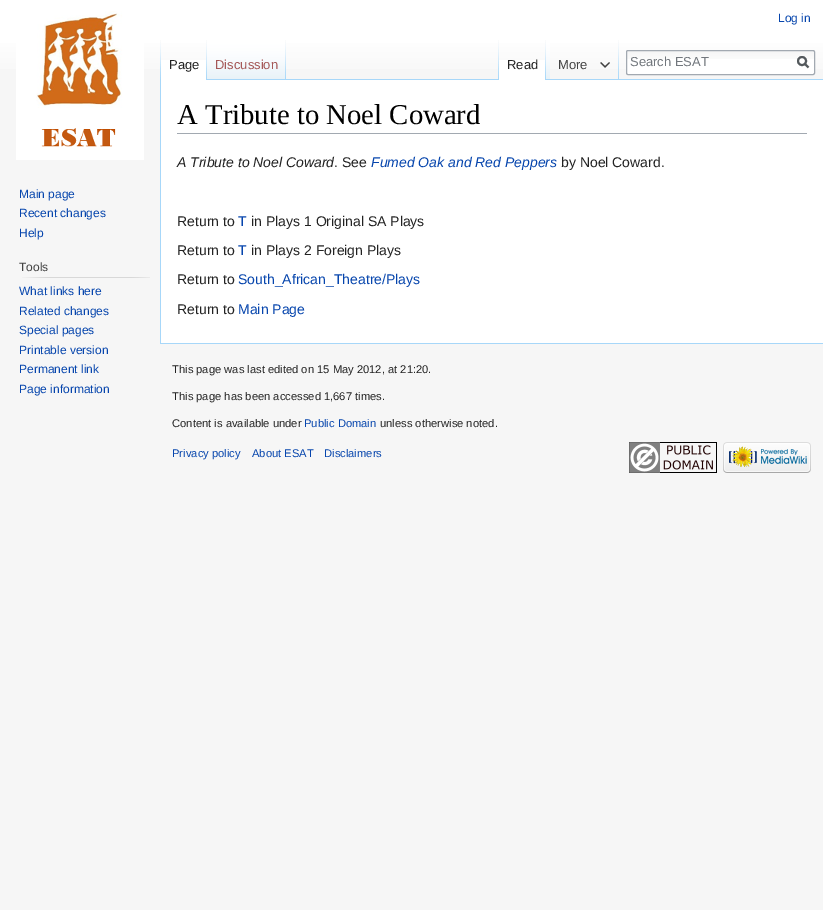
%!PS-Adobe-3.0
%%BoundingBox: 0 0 823 910
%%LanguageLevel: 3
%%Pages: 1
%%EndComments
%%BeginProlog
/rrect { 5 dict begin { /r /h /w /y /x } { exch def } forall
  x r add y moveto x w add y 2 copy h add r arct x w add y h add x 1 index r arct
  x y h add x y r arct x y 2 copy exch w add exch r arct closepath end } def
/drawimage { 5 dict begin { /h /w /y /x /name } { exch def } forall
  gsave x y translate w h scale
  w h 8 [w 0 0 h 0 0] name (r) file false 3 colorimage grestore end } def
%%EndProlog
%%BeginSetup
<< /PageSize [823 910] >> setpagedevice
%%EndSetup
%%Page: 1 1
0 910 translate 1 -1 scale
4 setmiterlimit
0.965 setgray
0 0 823 910 rectfill
gsave newpath 0 0 moveto 823 0 lineto 823 69 lineto 0 69 lineto closepath clip newpath
<< /ShadingType 2 /ColorSpace /DeviceRGB /Coords [412 0 412 80] /Extend [true true] /Function << /FunctionType 3 /Domain [0 1] /Functions [<< /FunctionType 2 /Domain [0 1] /C0 [1 1 1] /C1 [1 1 1] /N 1 >> << /FunctionType 2 /Domain [0 1] /C0 [1 1 1] /C1 [0.965 0.965 0.965] /N 1 >>] /Bounds [0.5] /Encode [0 1 0 1] >> >> shfill grestore
(images/1.raw) 160 40 1 39 drawimage
1 setgray
161 60 45 20 rectfill
(images/2.raw) 206 40 1 40 drawimage
(images/3.raw) 207 40 78 39 drawimage
(images/1.raw) 285 40 1 39 drawimage
(images/1.raw) 498 40 1 39 drawimage
0.655 0.843 0.976 setrgbcolor
207 79 616 1 rectfill
1 setgray
499 60 46 20 rectfill
(images/2.raw) 545 40 1 40 drawimage
(images/4.raw) 546 40 4 39 drawimage
(images/1.raw) 618 40 1 39 drawimage
(images/5.raw) 600 62 10 6 drawimage
626 50 189 25 2 rrect fill
(images/6.raw) 626 51 189 8 drawimage
0.635 0.663 0.694 setrgbcolor
626.5 50.5 188 24 1.5 rrect stroke
0.329 0.349 0.365 setrgbcolor
2 setlinewidth
newpath 808.5 67.5 moveto 804.5 63.5 lineto stroke
newpath 802 61 4 0 360 arc closepath stroke
(images/7.raw) 16 11 128 149 drawimage
(images/8.raw) 22 277 128 1 drawimage
1 setgray
161 80 662 263 rectfill
0.655 0.843 0.976 setrgbcolor
160 343 663 1 rectfill
160 79 1 265 rectfill
0.635 0.663 0.694 setrgbcolor
177 133 630 1 rectfill
(images/9.raw) 629 442 88 31 drawimage
(images/10.raw) 723 442 88 31 drawimage
/LiberationSans-Regular [12 0 0 -12 0 0] selectfont
0.024 0.271 0.678 setrgbcolor
778 22 moveto (Log in) show
/LiberationSans-Regular [13 0 0 -13 0 0] selectfont
0.133 setgray
169 69 moveto (Page) show
0.647 0.345 0.345 setrgbcolor
215 69 moveto (Discussion) show
0.133 setgray
507 69 moveto (Read) show
0.267 setgray
558 69 moveto (More) show
0.447 0.467 0.49 setrgbcolor
630 66 moveto (Search ESAT) show
/LiberationSans-Regular [12 0 0 -12 0 0] selectfont
0.024 0.271 0.678 setrgbcolor
19 198 moveto (Main page) show
19 217 moveto (Recent changes) show
19 237 moveto (Help) show
0.267 setgray
19 271 moveto (Tools) show
0.024 0.271 0.678 setrgbcolor
19 295 moveto (What links here) show
19 315 moveto (Related changes) show
19 334 moveto (Special pages) show
19 354 moveto (Printable version) show
19 373 moveto (Permanent link) show
19 393 moveto (Page information) show
/LiberationSerif-Regular [28.75 0 0 -28.75 0 0] selectfont
0 setgray
177 124 moveto (A Tribute to Noel Coward) show
/LiberationSans-Italic [14 0 0 -14 0 0] selectfont
0.133 setgray
177 167 moveto (A Tribute to Noel Coward) show
/LiberationSans-Regular [14 0 0 -14 0 0] selectfont
334 167 moveto (. See) show
/LiberationSans-Italic [14 0 0 -14 0 0] selectfont
0.024 0.271 0.678 setrgbcolor
371 167 moveto (Fumed Oak and Red Peppers) show
/LiberationSans-Regular [14 0 0 -14 0 0] selectfont
0.133 setgray
561 167 moveto (by Noel Coward.) show
177 226 moveto (Return to) show
0.024 0.271 0.678 setrgbcolor
238 226 moveto (T) show
0.133 setgray
251 226 moveto (in Plays 1 Original SA Plays) show
177 255 moveto (Return to) show
0.024 0.271 0.678 setrgbcolor
238 255 moveto (T) show
0.133 setgray
251 255 moveto (in Plays 2 Foreign Plays) show
177 284 moveto (Return to) show
0.024 0.271 0.678 setrgbcolor
238 284 moveto (South_African_Theatre/Plays) show
0.133 setgray
177 314 moveto (Return to) show
0.024 0.271 0.678 setrgbcolor
238 314 moveto (Main Page) show
/LiberationSans-Regular [11.2 0 0 -11.2 0 0] selectfont
0.133 setgray
172 373 moveto (This page was last edited on 15 May 2012, at 21:20.) show
172 400 moveto (This page has been accessed 1,667 times.) show
172 427 moveto (Content is available under) show
0.024 0.271 0.678 setrgbcolor
304 427 moveto (Public Domain) show
0.133 setgray
380 427 moveto (unless otherwise noted.) show
0.024 0.271 0.678 setrgbcolor
172 457 moveto (Privacy policy) show
252 457 moveto (About ESAT) show
324 457 moveto (Disclaimers) show
showpage
%%EOF
